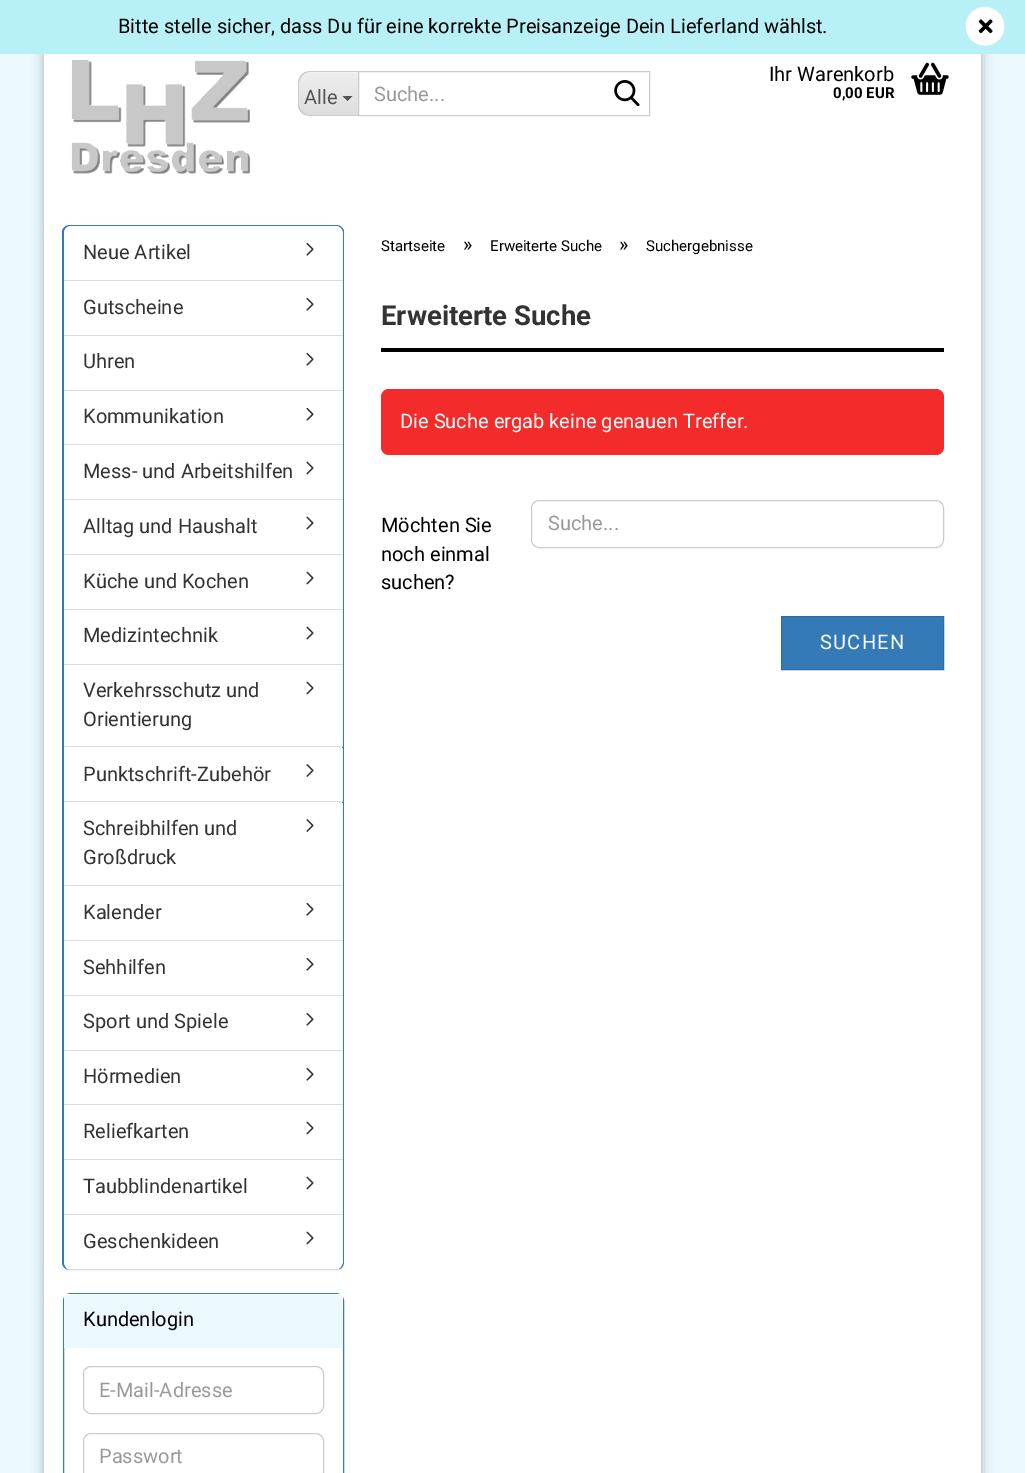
%!PS-Adobe-3.0
%%BoundingBox: 0 0 1025 1473
%%LanguageLevel: 3
%%Pages: 1
%%EndComments
%%BeginProlog
/setalpha { dup .setfillconstantalpha .setstrokeconstantalpha } def
/rrect { 5 dict begin { /r /h /w /y /x } { exch def } forall
  x r add y moveto x w add y 2 copy h add r arct x w add y h add x 1 index r arct
  x y h add x y r arct x y 2 copy exch w add exch r arct closepath end } def
/softshadow { 12 dict begin { /a /b /q /h /w /y /x } { exch def } forall gsave /was 0 def
  9 -2 -9 { dup b mul 4 div /e exch def 1 sub .425 mul 2.718 exch exp 1 add a .99 .min exch div /now exch def
    1 1 now sub 1 was sub div sub setalpha /was now def
    w h .min e 2 mul add 0 gt { x e sub y e sub w e 2 mul add h e 2 mul add
      q e add b .6 mul add w h .min 2 div e add .min 0 .max rrect fill } if } for grestore end } def
/drawimage { 5 dict begin { /h /w /y /x /name } { exch def } forall
  gsave x y translate w h scale
  w h 8 [w 0 0 h 0 0] name (r) file false 3 colorimage grestore end } def
%%EndProlog
%%BeginSetup
<< /PageSize [1025 1473] /PageUsesTransparency true >> setpagedevice
%%EndSetup
%%Page: 1 1
0 .pushpdf14devicefilter
0 1473 translate 1 -1 scale
4 setmiterlimit
0.922 0.976 1 setrgbcolor
0 0 1025 1473 rectfill
0 setgray
44 31 937 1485 25 6 0.3 softshadow
1 setgray
44 31 937 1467 25 rrect fill
0.718 0.941 0.969 setrgbcolor
0 0 1025 54 rectfill
1 setgray
newpath 971.5 12.5 moveto 974.5 9.5 978.5 7.5 983 7 curveto 1001 5.5 1011.5 27 998.5 40 curveto 995.5 43 991.5 45 987 45.5 curveto 969 47 958.5 25.5 971.5 12.5 curveto closepath fill
(images/1.raw) 978 19 15 15 drawimage
(images/2.raw) 71 59 180 115 drawimage
0.953 setgray
newpath 311 71 moveto 358 71 lineto 358 116 lineto 311 116 lineto 304 116 298 110 298 103 curveto 298 84 lineto 298 77 304 71 311 71 curveto closepath fill
gsave
newpath 311 71 moveto 358 71 lineto 358 116 lineto 311 116 lineto 304 116 298 110 298 103 curveto 298 84 lineto 298 77 304 71 311 71 curveto closepath clip newpath
gsave newpath 298 73 moveto 358 73 lineto 358 115 lineto 298 115 lineto closepath clip newpath
<< /ShadingType 2 /ColorSpace /DeviceRGB /Coords [328 73 328 115] /Extend [true true] /Function << /FunctionType 2 /Domain [0 1] /C0 [0.933 0.933 0.933] /C1 [0.871 0.871 0.871] /N 1 >> >> shfill grestore
grestore
0.8 setgray
newpath 310 71 moveto 358 71 lineto 358 116 lineto 310 116 lineto 303 116 298 111 298 104 curveto 298 84 lineto 298 77 303 71 310 71 curveto closepath 310 72 moveto 358 72 lineto 358 115 lineto 310 115 lineto 304 115 299 110 299 104 curveto 299 84 lineto 299 78 304 72 310 72 curveto closepath eofill
0.333 setgray
newpath 342.5 96 moveto 352.5 96 lineto 347.5 101 lineto closepath fill
0.8 setgray
358.5 71.5 291 44 rectstroke
(images/3.raw) 614 80 26 26 drawimage
(images/4.raw) 911 62 38 33 drawimage
0 setgray
63 226 281 1045 8 0.5 0.05 softshadow
1 setgray
63 225 281 1045 8 rrect fill
0.2 0.478 0.718 setrgbcolor
newpath 70 225 moveto 336 225 lineto 340 225 344 228 344 232 curveto 344 1262 lineto 344 1267 340 1270 336 1270 curveto 70 1270 lineto 66 1270 62 1267 62 1262 curveto 62 232 lineto 62 228 66 225 70 225 curveto closepath 70 226 moveto 336 226 lineto 340 226 342 229 342 232 curveto 342 1262 lineto 342 1267 340 1270 336 1270 curveto 70 1270 lineto 67 1270 64 1267 64 1262 curveto 64 232 lineto 64 229 67 226 70 226 curveto closepath eofill
0.867 setgray
64 280 279 1 rectfill
1 setgray
newpath 72 226 moveto 335 226 lineto 339.5 226 343 229.5 343 234 curveto 343 280 lineto 64 280 lineto 64 234 lineto 64 229.5 67.5 226 72 226 curveto closepath fill
(images/5.raw) 306 242 8 14 drawimage
0.867 setgray
64 335 279 1 rectfill
1 setgray
342 281 1 54 rectfill
(images/5.raw) 306 297 8 14 drawimage
0.867 setgray
64 390 279 1 rectfill
1 setgray
342 336 1 54 rectfill
(images/5.raw) 306 352 8 14 drawimage
0.867 setgray
64 444 279 1 rectfill
1 setgray
342 391 1 53 rectfill
(images/5.raw) 306 407 8 14 drawimage
0.867 setgray
64 499 279 1 rectfill
1 setgray
342 445 1 54 rectfill
(images/6.raw) 306 461 8 14 drawimage
0.867 setgray
64 554 279 1 rectfill
1 setgray
342 500 1 54 rectfill
(images/6.raw) 306 516 8 14 drawimage
0.867 setgray
64 609 279 1 rectfill
1 setgray
342 555 1 54 rectfill
(images/6.raw) 306 571 8 14 drawimage
0.867 setgray
64 664 279 1 rectfill
1 setgray
342 610 1 54 rectfill
(images/6.raw) 306 626 8 14 drawimage
0.867 setgray
64 746 279 1 rectfill
1 setgray
342 665 1 81 rectfill
(images/6.raw) 306 681 8 14 drawimage
0.867 setgray
64 801 279 1 rectfill
1 setgray
342 748 1 53 rectfill
(images/7.raw) 306 764 8 13 drawimage
0.867 setgray
64 885 279 1 rectfill
1 setgray
342 803 1 82 rectfill
(images/7.raw) 306 819 8 13 drawimage
0.867 setgray
64 940 279 1 rectfill
1 setgray
342 886 1 54 rectfill
(images/5.raw) 306 902 8 14 drawimage
0.867 setgray
64 995 279 1 rectfill
1 setgray
342 941 1 54 rectfill
(images/5.raw) 306 957 8 14 drawimage
0.867 setgray
64 1050 279 1 rectfill
1 setgray
342 996 1 54 rectfill
(images/5.raw) 306 1012 8 14 drawimage
0.867 setgray
64 1104 279 1 rectfill
1 setgray
342 1051 1 53 rectfill
(images/5.raw) 306 1067 8 14 drawimage
0.867 setgray
64 1159 279 1 rectfill
1 setgray
342 1105 1 54 rectfill
(images/6.raw) 306 1121 8 14 drawimage
0.867 setgray
64 1214 279 1 rectfill
1 setgray
342 1160 1 54 rectfill
(images/6.raw) 306 1176 8 14 drawimage
0.867 setgray
68 1269 271 1 rectfill
1 setgray
newpath 64 1215 moveto 343 1215 lineto 343 1261 lineto 343 1265.5 339.5 1269 335 1269 curveto 72 1269 lineto 67.5 1269 64 1265.5 64 1261 curveto closepath fill
(images/6.raw) 306 1231 8 14 drawimage
0.2 0.478 0.718 setrgbcolor
63.5 1293.5 280 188 7.5 rrect stroke
0.922 0.976 1 setrgbcolor
newpath 65 1294 moveto 342 1294 lineto 342.5 1294 343 1294.5 343 1295 curveto 343 1348 lineto 64 1348 lineto 64 1295 lineto 64 1294.5 64.5 1294 65 1294 curveto closepath fill
1 setgray
newpath 65 1295 moveto 341 1295 lineto 342 1295 342 1296 342 1296 curveto 342 1348 lineto 343 1348 lineto 343 1295 lineto 343 1294 343 1294 342 1294 curveto 65 1294 lineto 64 1294 64 1294 64 1295 curveto 64 1296 lineto closepath fill
0.8 setgray
83.5 1366.5 240 47 7.5 rrect stroke
83.5 1433.5 240 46 7.5 rrect stroke
0 setgray
381 348 563 4 rectfill
0.957 0.169 0.169 setrgbcolor
381 389 563 66 8 rrect fill
0.8 setgray
531.5 500.5 412 47 7.5 rrect stroke
0.2 0.478 0.718 setrgbcolor
newpath 781.5 616.5 moveto 943.5 616.5 lineto 943.5 669.5 lineto 781.5 669.5 lineto closepath gsave fill grestore
0.176 0.427 0.639 setrgbcolor
stroke
/Roboto-Regular [20 0 0 -20 0 0] selectfont
0 setgray
118 33 moveto (Bitte stelle sicher, dass Du für eine korrekte Preisanzeige Dein Lieferland wählst.) show
0.333 setgray
304 104 moveto (Alle) show
0.6 setgray
374 101 moveto (Suche...) show
0 setgray
769 81 moveto (Ihr Warenkorb) show
/Roboto-Bold [15 0 0 -15 0 0] selectfont
833 98 moveto (0,00 EUR) show
/Roboto-Regular [20 0 0 -20 0 0] selectfont
0.2 setgray
83 259 moveto (Neue Artikel) show
83 314 moveto (Gutscheine) show
83 368 moveto (Uhren) show
83 423 moveto (Kommunikation) show
83 478 moveto (Mess- und Arbeitshilfen) show
83 533 moveto (Alltag und Haushalt) show
83 588 moveto (Küche und Kochen) show
83 642 moveto (Medizintechnik) show
83 697 moveto (Verkehrsschutz und) show
83 726 moveto (Orientierung) show
83 781 moveto (Punktschrift-Zubehör) show
83 835 moveto (Schreibhilfen und) show
83 864 moveto (Großdruck) show
83 919 moveto (Kalender) show
83 974 moveto (Sehhilfen) show
83 1028 moveto (Sport und Spiele) show
83 1083 moveto (Hörmedien) show
83 1138 moveto (Reliefkarten) show
83 1193 moveto (Taubblindenartikel) show
83 1248 moveto (Geschenkideen) show
0 setgray
83 1326 moveto (Kundenlogin) show
0.6 setgray
99 1397 moveto (E-Mail-Adresse) show
99 1463 moveto (Passwort) show
/Roboto-Regular [15 0 0 -15 0 0] selectfont
0 setgray
381 251 moveto (Startseite) show
/Roboto-Regular [20 0 0 -20 0 0] selectfont
463 251 moveto (») show
/Roboto-Regular [15 0 0 -15 0 0] selectfont
490 251 moveto (Erweiterte Suche) show
/Roboto-Regular [20 0 0 -20 0 0] selectfont
619 251 moveto (») show
/Roboto-Regular [15 0 0 -15 0 0] selectfont
646 251 moveto (Suchergebnisse) show
/Roboto-Bold [27.5 0 0 -27.5 0 0] selectfont
0.2 setgray
381 325 moveto (Erweiterte Suche) show
/Roboto-Regular [20 0 0 -20 0 0] selectfont
1 setgray
400 428 moveto (Die Suche ergab keine genauen Treffer.) show
0 setgray
381 532 moveto (Möchten Sie) show
381 561 moveto (noch einmal) show
381 589 moveto (suchen?) show
0.6 setgray
548 530 moveto (Suche...) show
1 setgray
820 649 moveto 1.25 0 (SUCHEN) ashow
.poppdf14devicefilter showpage
%%EOF
